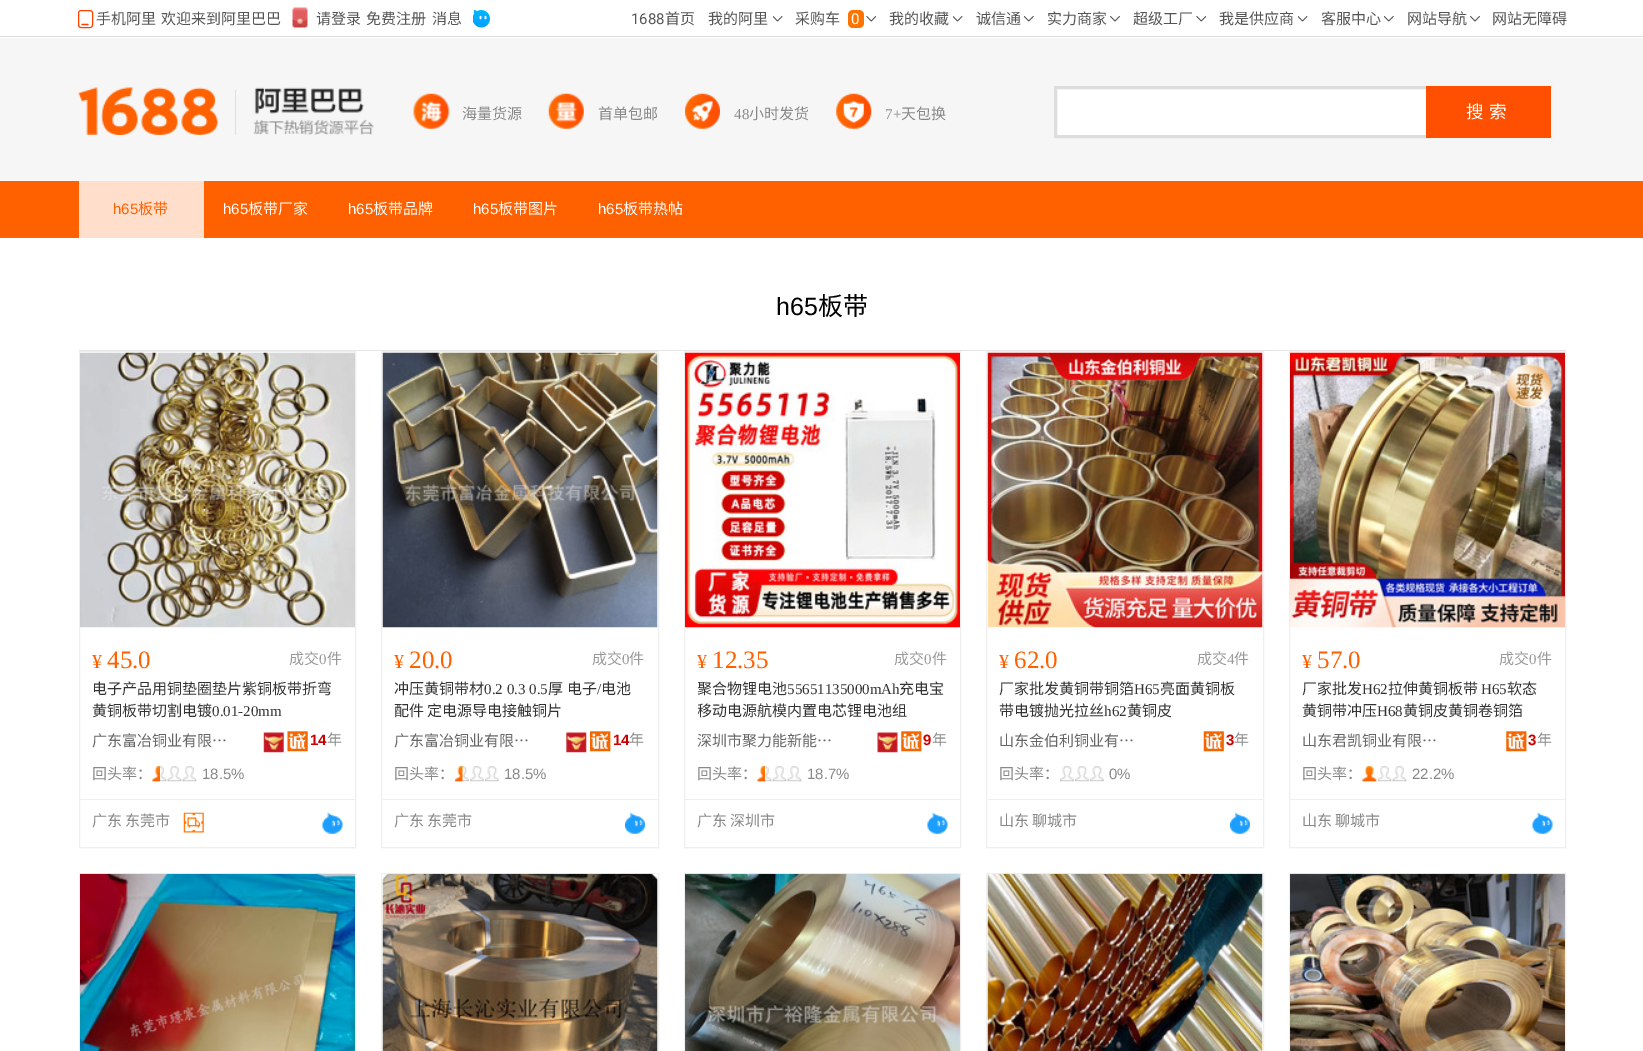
%!PS-Adobe-3.0
%%BoundingBox: 0 0 1643 1051
%%LanguageLevel: 3
%%Pages: 1
%%EndComments
%%BeginProlog
/rrect { 5 dict begin { /r /h /w /y /x } { exch def } forall
  x r add y moveto x w add y 2 copy h add r arct x w add y h add x 1 index r arct
  x y h add x y r arct x y 2 copy exch w add exch r arct closepath end } def
/drawimage { 5 dict begin { /h /w /y /x /name } { exch def } forall
  gsave x y translate w h scale
  w h 8 [w 0 0 h 0 0] name (r) file false 3 colorimage grestore end } def
%%EndProlog
%%BeginSetup
<< /PageSize [1643 1051] >> setpagedevice
%%EndSetup
%%Page: 1 1
0 1051 translate 1 -1 scale
4 setmiterlimit
1 setgray
0 0 1643 1051 rectfill
0.867 setgray
0 36 1643 1 rectfill
1 0.251 0 setrgbcolor
78.5 10.5 14 17 2.5 rrect stroke
1.2 setlinewidth
1 setlinecap
1 setlinejoin
newpath 82 24.5 moveto 88 24.5 lineto stroke
(images/1.raw) 292 7 16 21 drawimage
(images/2.raw) 473 10 17 18 drawimage
(images/3.raw) 773 16 10 6 drawimage
1 0.451 0 setrgbcolor
848 10 16 18 5 rrect fill
(images/4.raw) 866 16 10 6 drawimage
(images/3.raw) 953 16 10 6 drawimage
(images/5.raw) 1024 16 10 6 drawimage
(images/6.raw) 1110 16 10 6 drawimage
(images/4.raw) 1196 16 10 6 drawimage
(images/3.raw) 1298 16 10 6 drawimage
(images/5.raw) 1384 16 10 6 drawimage
(images/6.raw) 1470 16 10 6 drawimage
0.965 setgray
0 38 1643 143 rectfill
(images/7.raw) 78 87 140 48 drawimage
0.875 setgray
235 90 1 45 rectfill
(images/8.raw) 253 87 121 48 drawimage
(images/9.raw) 413 93 37 36 drawimage
(images/10.raw) 548 93 36 36 drawimage
(images/11.raw) 685 93 35 36 drawimage
(images/12.raw) 836 93 36 36 drawimage
1 setgray
1057 89 369 46 rectfill
0.867 setgray
3 setlinewidth
0 setlinecap
0 setlinejoin
1055.5 87.5 373 49 rectstroke
1 0.31 0 setrgbcolor
1426 86 125 52 rectfill
1 0.376 0 setrgbcolor
0 181 1643 57 rectfill
1 0.875 0.8 setrgbcolor
79 181 125 57 rectfill
0.898 setgray
79 350 1487 1 rectfill
0.937 setgray
1 setlinewidth
79.5 351.5 276 496 rectstroke
(images/13.raw) 80 352 275 276 drawimage
(images/14.raw) 263 732 21 21 drawimage
(images/15.raw) 287 731 21 21 drawimage
(images/16.raw) 152 766 45 16 drawimage
(images/17.raw) 152 766 8 16 drawimage
80 799 275 1 rectfill
(images/18.raw) 183 812 21 21 drawimage
(images/19.raw) 322 812 21 22 drawimage
381.5 351.5 277 496 rectstroke
(images/20.raw) 382 352 276 276 drawimage
(images/21.raw) 566 732 21 21 drawimage
(images/22.raw) 590 731 21 21 drawimage
(images/23.raw) 455 766 44 16 drawimage
(images/24.raw) 455 766 8 16 drawimage
383 799 275 1 rectfill
(images/25.raw) 625 812 20 22 drawimage
684.5 351.5 276 496 rectstroke
(images/26.raw) 685 352 275 276 drawimage
(images/27.raw) 877 732 21 21 drawimage
(images/28.raw) 901 731 21 21 drawimage
(images/16.raw) 757 766 45 16 drawimage
(images/17.raw) 757 766 8 16 drawimage
685 799 275 1 rectfill
(images/29.raw) 927 812 21 22 drawimage
986.5 351.5 277 496 rectstroke
(images/30.raw) 987 352 276 276 drawimage
(images/31.raw) 1203 731 22 21 drawimage
(images/32.raw) 1060 766 44 16 drawimage
988 799 275 1 rectfill
(images/25.raw) 1230 812 20 22 drawimage
1289.5 351.5 276 496 rectstroke
(images/33.raw) 1290 352 275 276 drawimage
(images/28.raw) 1506 731 21 21 drawimage
(images/16.raw) 1362 766 45 16 drawimage
(images/34.raw) 1362 766 16 16 drawimage
1290 799 275 1 rectfill
(images/29.raw) 1532 812 21 22 drawimage
79.5 873.5 276 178 rectstroke
(images/35.raw) 80 873 275 178 drawimage
381.5 873.5 277 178 rectstroke
(images/36.raw) 382 873 276 178 drawimage
684.5 873.5 276 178 rectstroke
(images/37.raw) 685 873 275 178 drawimage
986.5 873.5 277 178 rectstroke
(images/38.raw) 987 873 276 178 drawimage
1289.5 873.5 276 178 rectstroke
(images/39.raw) 1290 873 275 178 drawimage
/NotoSansCJKSC-Regular [15 0 0 -15 0 0] selectfont
0.333 setgray
96 24 moveto (手机阿里) show
161 24 moveto (欢迎来到阿里巴巴) show
316 24 moveto (请登录) show
366 24 moveto (免费注册) show
432 24 moveto (消息) show
/Roboto-Regular [15 0 0 -15 0 0] selectfont
631 24 moveto (1688) show
/NotoSansCJKSC-Regular [15 0 0 -15 0 0] selectfont
665 24 moveto (首页) show
708 24 moveto (我的阿里) show
795 24 moveto (采购车) show
/Roboto-Regular [15 0 0 -15 0 0] selectfont
1 setgray
851 24 moveto (0) show
/NotoSansCJKSC-Regular [15 0 0 -15 0 0] selectfont
0.333 setgray
889 24 moveto (我的收藏) show
976 24 moveto (诚信通) show
1047 24 moveto (实力商家) show
1133 24 moveto (超级工厂) show
1219 24 moveto (我是供应商) show
1321 24 moveto (客服中心) show
1407 24 moveto (网站导航) show
1492 24 moveto (网站无障碍) show
0.533 setgray
462 119 moveto (海量货源) show
598 119 moveto (首单包邮) show
/LiberationSerif-Regular [15 0 0 -15 0 0] selectfont
734 119 moveto (48) show
/NotoSansCJKSC-Regular [15 0 0 -15 0 0] selectfont
749 119 moveto (小时发货) show
/LiberationSerif-Regular [15 0 0 -15 0 0] selectfont
885 119 moveto (7+) show
/NotoSansCJKSC-Regular [15 0 0 -15 0 0] selectfont
901 119 moveto (天包换) show
/NotoSansCJKSC-Regular [17.5 0 0 -17.5 0 0] selectfont
1 setgray
1466 118 moveto 5 0 (搜索) ashow
/LiberationSans-Regular [15 0 0 -15 0 0] selectfont
1 0.376 0 setrgbcolor
113 214 moveto (h65) show
/NotoSansCJKSC-Regular [15 0 0 -15 0 0] selectfont
138 214 moveto (板带) show
/LiberationSans-Regular [15 0 0 -15 0 0] selectfont
1 setgray
223 214 moveto (h65) show
/NotoSansCJKSC-Regular [15 0 0 -15 0 0] selectfont
248 214 moveto (板带) show
278 214 moveto (厂家) show
/LiberationSans-Regular [15 0 0 -15 0 0] selectfont
348 214 moveto (h65) show
/NotoSansCJKSC-Regular [15 0 0 -15 0 0] selectfont
373 214 moveto (板带) show
403 214 moveto (品牌) show
/LiberationSans-Regular [15 0 0 -15 0 0] selectfont
473 214 moveto (h65) show
/NotoSansCJKSC-Regular [15 0 0 -15 0 0] selectfont
498 214 moveto (板带) show
528 214 moveto (图片) show
/LiberationSans-Regular [15 0 0 -15 0 0] selectfont
598 214 moveto (h65) show
/NotoSansCJKSC-Regular [15 0 0 -15 0 0] selectfont
623 214 moveto (板带) show
653 214 moveto (热帖) show
/LiberationSans-Regular [25 0 0 -25 0 0] selectfont
0 setgray
776 315 moveto (h65) show
/NotoSansCJKSC-Regular [25 0 0 -25 0 0] selectfont
818 315 moveto (板带) show
/LiberationSerif-Regular [20 0 0 -20 0 0] selectfont
1 0.376 0 setrgbcolor
92 668 moveto (¥) show
/LiberationSerif-Regular [25 0 0 -25 0 0] selectfont
107 668 moveto (45.0) show
/NotoSansCJKSC-Regular [15 0 0 -15 0 0] selectfont
0.6 setgray
289 664 moveto (成交) show
/LiberationSerif-Regular [15 0 0 -15 0 0] selectfont
319 664 moveto (0) show
/NotoSansCJKSC-Regular [15 0 0 -15 0 0] selectfont
327 664 moveto (件) show
0.2 setgray
92 694 moveto (电子产品用铜垫圈垫片紫铜板带折弯) show
92 716 moveto (黄铜板带切割电镀) show
/LiberationSerif-Regular [15 0 0 -15 0 0] selectfont
212 716 moveto (0.01-20mm) show
/NotoSansCJKSC-Regular [15 0 0 -15 0 0] selectfont
0.4 setgray
92 746 moveto (广东富冶铜业有限…) show
/LiberationSans-Bold [15 0 0 -15 0 0] selectfont
0.8 0 0 setrgbcolor
310 745 moveto (14) show
/NotoSansCJKSC-Regular [15 0 0 -15 0 0] selectfont
0.533 setgray
327 745 moveto (年) show
92 779 moveto (回头率：) show
/LiberationSans-Regular [15 0 0 -15 0 0] selectfont
202 779 moveto (18.5%) show
/NotoSansCJKSC-Regular [15 0 0 -15 0 0] selectfont
92 826 moveto (广东 东莞市) show
/LiberationSerif-Regular [20 0 0 -20 0 0] selectfont
1 0.376 0 setrgbcolor
394 668 moveto (¥) show
/LiberationSerif-Regular [25 0 0 -25 0 0] selectfont
409 668 moveto (20.0) show
/NotoSansCJKSC-Regular [15 0 0 -15 0 0] selectfont
0.6 setgray
592 664 moveto (成交) show
/LiberationSerif-Regular [15 0 0 -15 0 0] selectfont
622 664 moveto (0) show
/NotoSansCJKSC-Regular [15 0 0 -15 0 0] selectfont
629 664 moveto (件) show
0.2 setgray
394 694 moveto (冲压黄铜带材) show
/LiberationSerif-Regular [15 0 0 -15 0 0] selectfont
484 694 moveto (0.2 0.3 0.5) show
/NotoSansCJKSC-Regular [15 0 0 -15 0 0] selectfont
548 694 moveto (厚) show
567 694 moveto (电子) show
/LiberationSerif-Regular [15 0 0 -15 0 0] selectfont
597 694 moveto (/) show
/NotoSansCJKSC-Regular [15 0 0 -15 0 0] selectfont
601 694 moveto (电池) show
394 716 moveto (配件 定电源导电接触铜片) show
0.4 setgray
394 746 moveto (广东富冶铜业有限…) show
/LiberationSans-Bold [15 0 0 -15 0 0] selectfont
0.8 0 0 setrgbcolor
613 745 moveto (14) show
/NotoSansCJKSC-Regular [15 0 0 -15 0 0] selectfont
0.533 setgray
629 745 moveto (年) show
394 779 moveto (回头率：) show
/LiberationSans-Regular [15 0 0 -15 0 0] selectfont
504 779 moveto (18.5%) show
/NotoSansCJKSC-Regular [15 0 0 -15 0 0] selectfont
394 826 moveto (广东 东莞市) show
/LiberationSerif-Regular [20 0 0 -20 0 0] selectfont
1 0.376 0 setrgbcolor
697 668 moveto (¥) show
/LiberationSerif-Regular [25 0 0 -25 0 0] selectfont
712 668 moveto (12.35) show
/NotoSansCJKSC-Regular [15 0 0 -15 0 0] selectfont
0.6 setgray
894 664 moveto (成交) show
/LiberationSerif-Regular [15 0 0 -15 0 0] selectfont
924 664 moveto (0) show
/NotoSansCJKSC-Regular [15 0 0 -15 0 0] selectfont
932 664 moveto (件) show
gsave
698 678 250 45 rectclip
0.2 setgray
697 694 moveto (聚合物锂电池) show
grestore
/LiberationSerif-Regular [15 0 0 -15 0 0] selectfont
0.2 setgray
787 694 moveto (55651135000mAh) show
/NotoSansCJKSC-Regular [15 0 0 -15 0 0] selectfont
899 694 moveto (充电宝) show
gsave
698 678 250 45 rectclip
697 716 moveto (移动电源航模内置电芯锂电池组) show
grestore
0.4 setgray
697 746 moveto (深圳市聚力能新能…) show
/LiberationSans-Bold [15 0 0 -15 0 0] selectfont
0.8 0 0 setrgbcolor
923 745 moveto (9) show
/NotoSansCJKSC-Regular [15 0 0 -15 0 0] selectfont
0.533 setgray
932 745 moveto (年) show
697 779 moveto (回头率：) show
/LiberationSans-Regular [15 0 0 -15 0 0] selectfont
807 779 moveto (18.7%) show
/NotoSansCJKSC-Regular [15 0 0 -15 0 0] selectfont
697 826 moveto (广东 深圳市) show
/LiberationSerif-Regular [20 0 0 -20 0 0] selectfont
1 0.376 0 setrgbcolor
999 668 moveto (¥) show
/LiberationSerif-Regular [25 0 0 -25 0 0] selectfont
1014 668 moveto (62.0) show
/NotoSansCJKSC-Regular [15 0 0 -15 0 0] selectfont
0.6 setgray
1197 664 moveto (成交) show
/LiberationSerif-Regular [15 0 0 -15 0 0] selectfont
1227 664 moveto (4) show
/NotoSansCJKSC-Regular [15 0 0 -15 0 0] selectfont
1234 664 moveto (件) show
0.2 setgray
999 694 moveto (厂家批发黄铜带铜箔) show
/LiberationSerif-Regular [15 0 0 -15 0 0] selectfont
1134 694 moveto (H65) show
/NotoSansCJKSC-Regular [15 0 0 -15 0 0] selectfont
1160 694 moveto (亮面黄铜板) show
999 716 moveto (带电镀抛光拉丝) show
/LiberationSerif-Regular [15 0 0 -15 0 0] selectfont
1104 716 moveto (h62) show
/NotoSansCJKSC-Regular [15 0 0 -15 0 0] selectfont
1127 716 moveto (黄铜皮) show
0.4 setgray
999 746 moveto (山东金伯利铜业有…) show
/LiberationSans-Bold [15 0 0 -15 0 0] selectfont
0.8 0 0 setrgbcolor
1226 745 moveto (3) show
/NotoSansCJKSC-Regular [15 0 0 -15 0 0] selectfont
0.533 setgray
1234 745 moveto (年) show
999 779 moveto (回头率：) show
/LiberationSans-Regular [15 0 0 -15 0 0] selectfont
1109 779 moveto (0%) show
/NotoSansCJKSC-Regular [15 0 0 -15 0 0] selectfont
999 826 moveto (山东 聊城市) show
/LiberationSerif-Regular [20 0 0 -20 0 0] selectfont
1 0.376 0 setrgbcolor
1302 668 moveto (¥) show
/LiberationSerif-Regular [25 0 0 -25 0 0] selectfont
1317 668 moveto (57.0) show
/NotoSansCJKSC-Regular [15 0 0 -15 0 0] selectfont
0.6 setgray
1499 664 moveto (成交) show
/LiberationSerif-Regular [15 0 0 -15 0 0] selectfont
1529 664 moveto (0) show
/NotoSansCJKSC-Regular [15 0 0 -15 0 0] selectfont
1537 664 moveto (件) show
0.2 setgray
1302 694 moveto (厂家批发) show
/LiberationSerif-Regular [15 0 0 -15 0 0] selectfont
1362 694 moveto (H62) show
/NotoSansCJKSC-Regular [15 0 0 -15 0 0] selectfont
1388 694 moveto (拉伸黄铜板带) show
/LiberationSerif-Regular [15 0 0 -15 0 0] selectfont
1481 694 moveto (H65) show
/NotoSansCJKSC-Regular [15 0 0 -15 0 0] selectfont
1507 694 moveto (软态) show
1302 716 moveto (黄铜带冲压) show
/LiberationSerif-Regular [15 0 0 -15 0 0] selectfont
1377 716 moveto (H68) show
/NotoSansCJKSC-Regular [15 0 0 -15 0 0] selectfont
1403 716 moveto (黄铜皮黄铜卷铜箔) show
0.4 setgray
1302 746 moveto (山东君凯铜业有限…) show
/LiberationSans-Bold [15 0 0 -15 0 0] selectfont
0.8 0 0 setrgbcolor
1528 745 moveto (3) show
/NotoSansCJKSC-Regular [15 0 0 -15 0 0] selectfont
0.533 setgray
1537 745 moveto (年) show
1302 779 moveto (回头率：) show
/LiberationSans-Regular [15 0 0 -15 0 0] selectfont
1412 779 moveto (22.2%) show
/NotoSansCJKSC-Regular [15 0 0 -15 0 0] selectfont
1302 826 moveto (山东 聊城市) show
showpage
%%EOF
